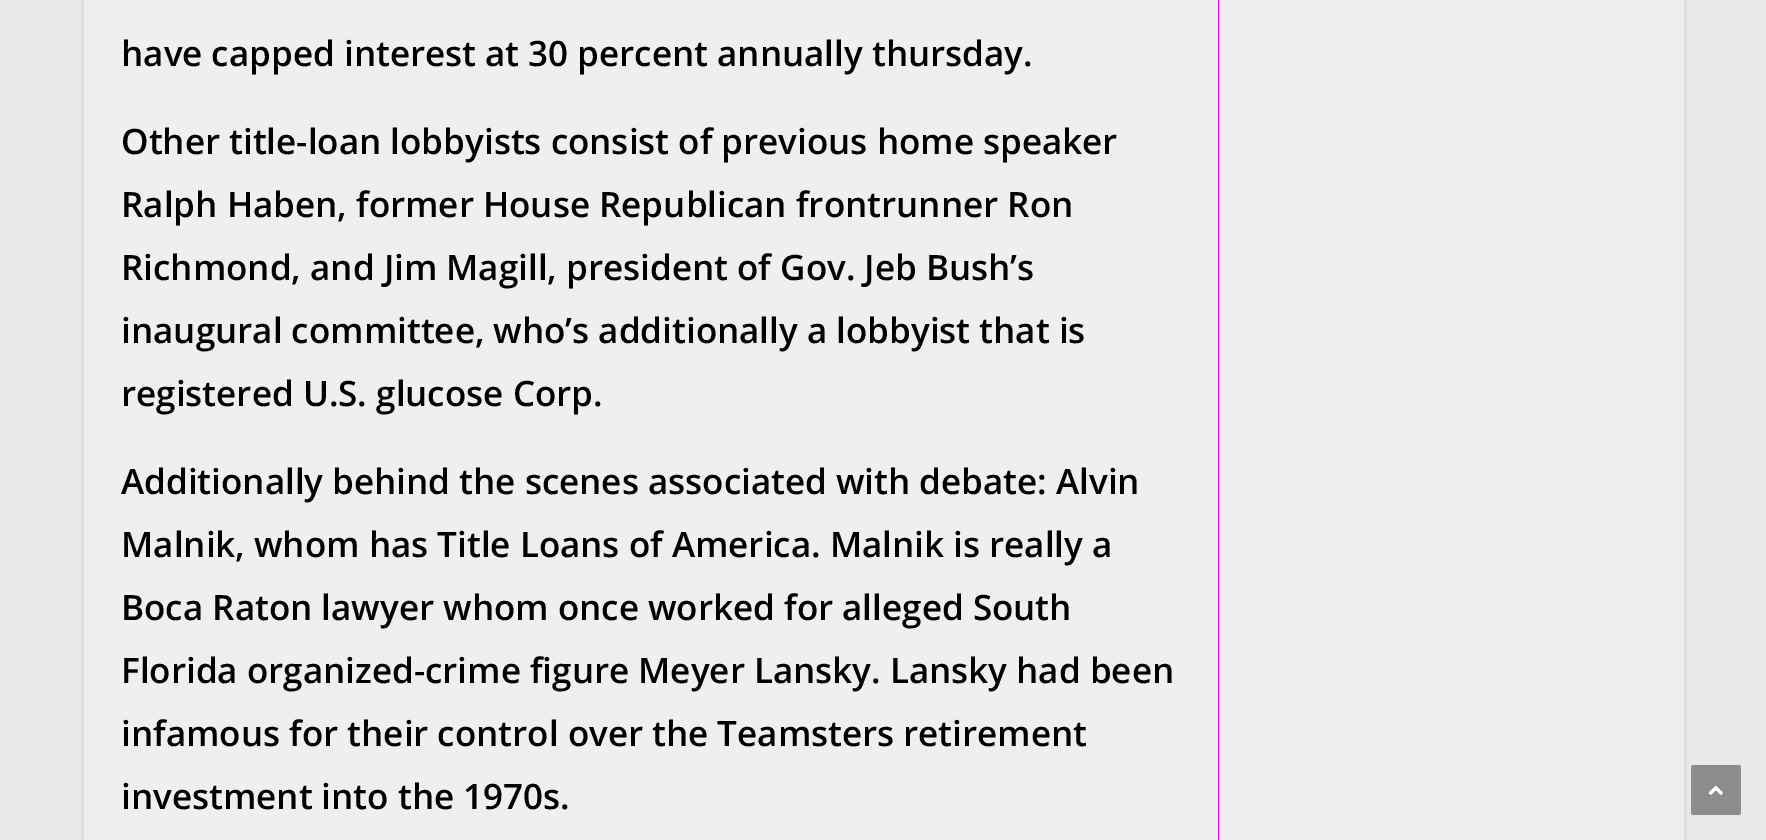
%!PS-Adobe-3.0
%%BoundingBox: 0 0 1766 840
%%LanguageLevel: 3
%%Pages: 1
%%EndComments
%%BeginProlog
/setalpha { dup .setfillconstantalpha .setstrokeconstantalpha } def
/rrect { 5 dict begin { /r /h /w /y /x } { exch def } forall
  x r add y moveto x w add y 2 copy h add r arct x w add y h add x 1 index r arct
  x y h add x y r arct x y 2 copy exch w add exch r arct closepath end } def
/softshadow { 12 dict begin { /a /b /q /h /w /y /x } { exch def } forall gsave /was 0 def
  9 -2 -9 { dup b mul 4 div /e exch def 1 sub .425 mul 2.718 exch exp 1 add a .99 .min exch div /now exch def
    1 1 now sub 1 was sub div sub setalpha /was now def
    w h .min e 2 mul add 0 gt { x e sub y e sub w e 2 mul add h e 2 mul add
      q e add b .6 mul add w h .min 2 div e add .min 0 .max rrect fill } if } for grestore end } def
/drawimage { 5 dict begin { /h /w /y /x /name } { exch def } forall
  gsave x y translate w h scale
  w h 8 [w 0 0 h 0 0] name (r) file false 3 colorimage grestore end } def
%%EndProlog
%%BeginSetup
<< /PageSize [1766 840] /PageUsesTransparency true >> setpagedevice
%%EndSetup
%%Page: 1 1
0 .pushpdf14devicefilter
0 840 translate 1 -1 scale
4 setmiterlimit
0.914 setgray
0 0 1766 840 rectfill
0 setgray
84 -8 1600 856 0 2.5 0.15 softshadow
0.937 setgray
84 0 1600 840 rectfill
0.91 0.035 0.835 setrgbcolor
1218 0 1 840 rectfill
0.549 setgray
1691 765 50 50 2.5 rrect fill
(images/1.raw) 1708 785 15 10 drawimage
/OpenSans-SemiBold [35 0 0 -35 0 0] selectfont
0 setgray
121 66 moveto (have capped interest at 30 percent annually thursday.) show
121 154 moveto (Other title-loan lobbyists consist of previous home speaker) show
121 217 moveto (Ralph Haben, former House Republican frontrunner Ron) show
121 280 moveto (Richmond, and Jim Magill, president of Gov. Jeb Bush’s) show
121 343 moveto (inaugural committee, who’s additionally a lobbyist that is) show
121 406 moveto (registered U.S. glucose Corp.) show
121 494 moveto (Additionally behind the scenes associated with debate: Alvin) show
121 557 moveto (Malnik, whom has Title Loans of America. Malnik is really a) show
121 620 moveto (Boca Raton lawyer whom once worked for alleged South) show
121 683 moveto (Florida organized-crime figure Meyer Lansky. Lansky had been) show
121 746 moveto (infamous for their control over the Teamsters retirement) show
121 809 moveto (investment into the 1970s.) show
.poppdf14devicefilter showpage
%%EOF
